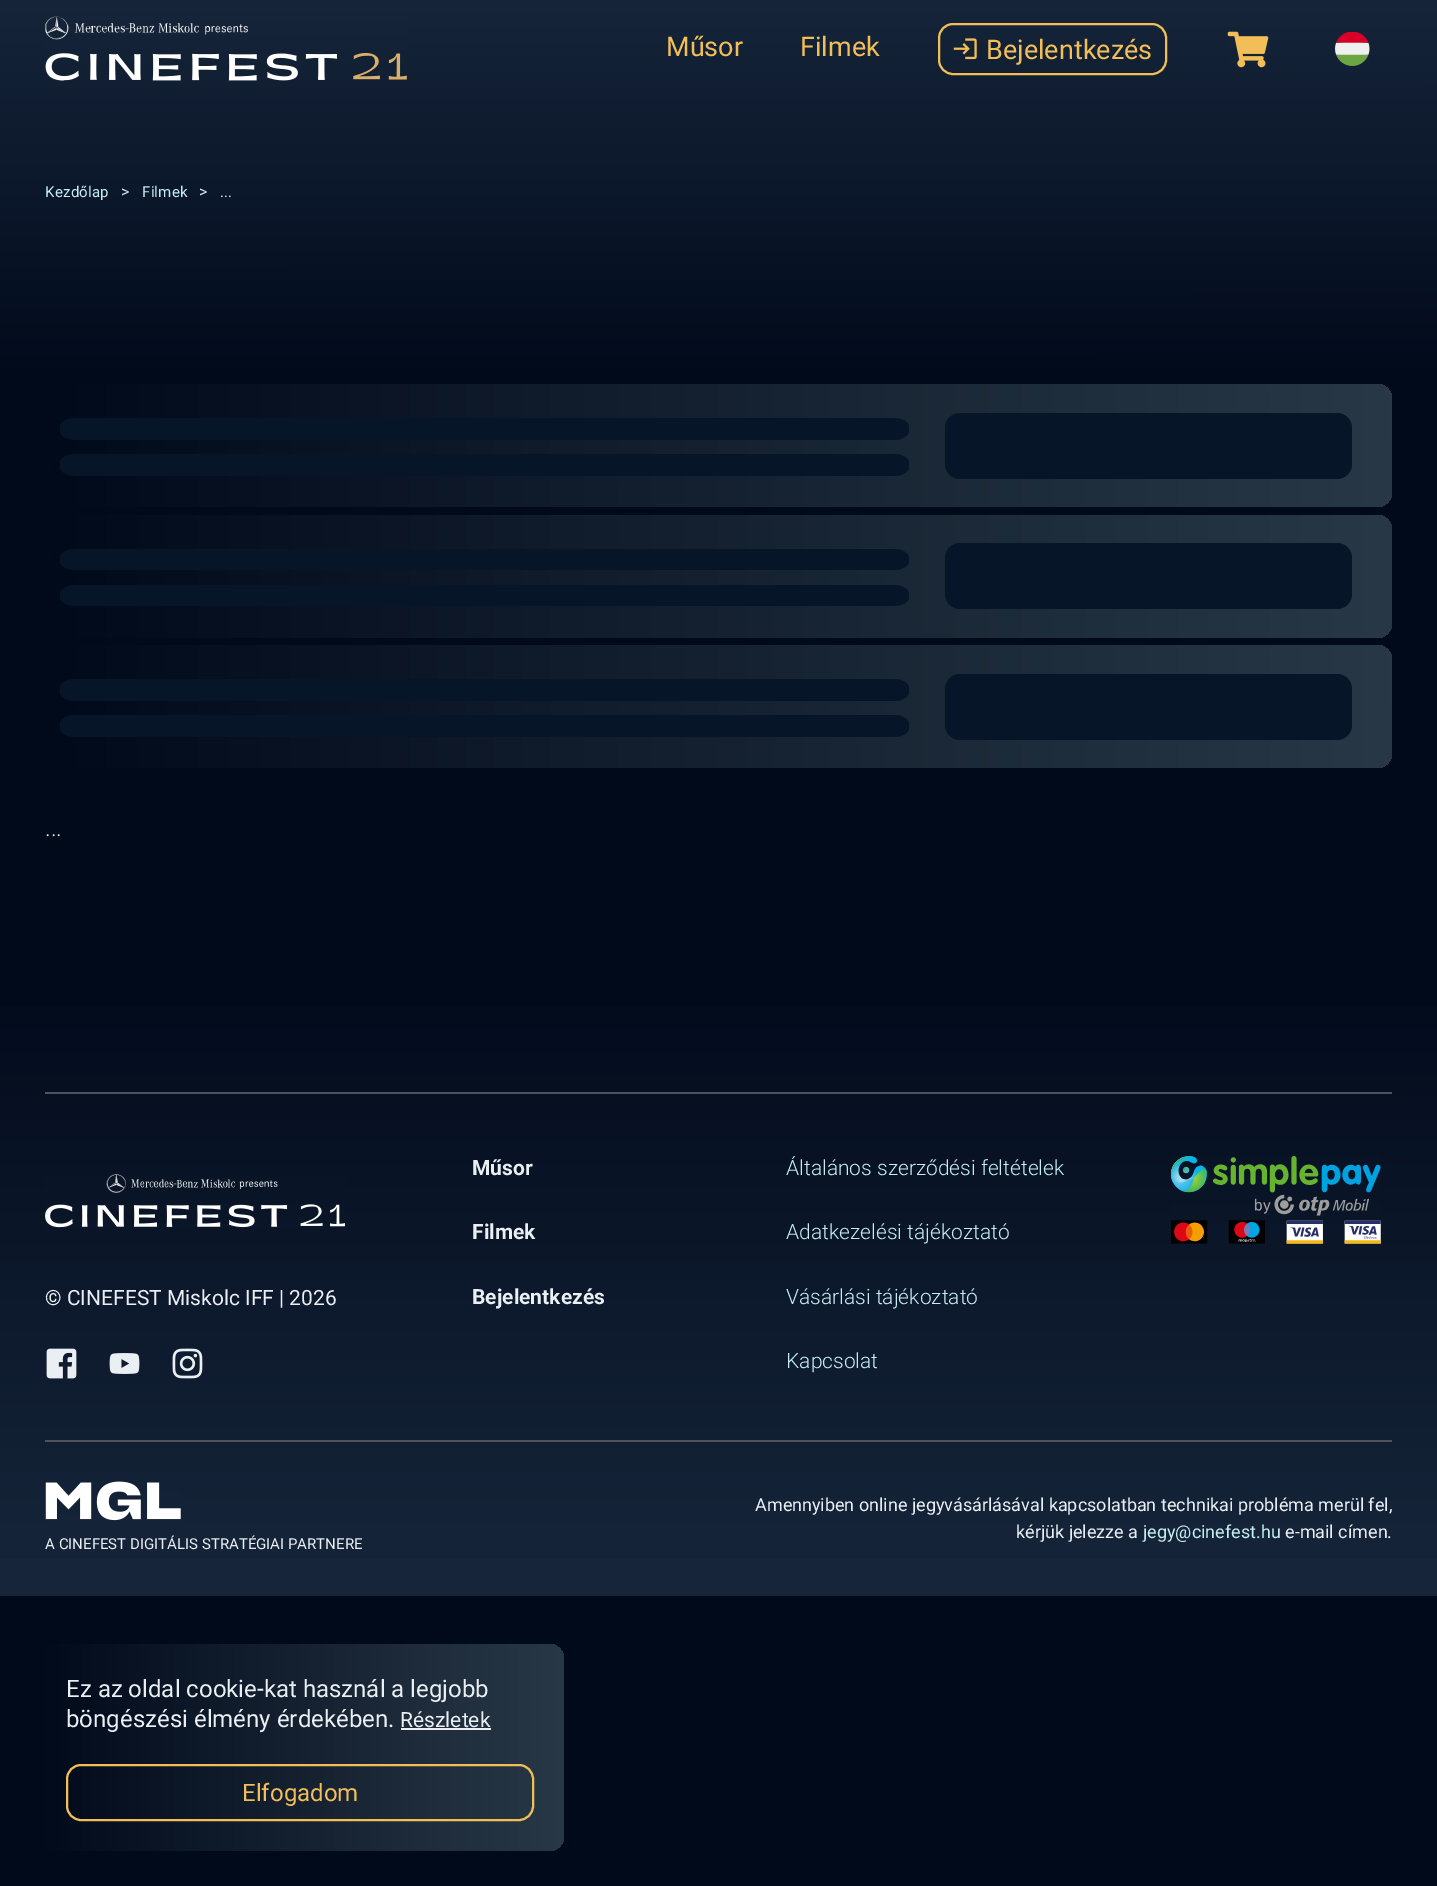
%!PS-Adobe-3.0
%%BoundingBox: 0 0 1437 1886
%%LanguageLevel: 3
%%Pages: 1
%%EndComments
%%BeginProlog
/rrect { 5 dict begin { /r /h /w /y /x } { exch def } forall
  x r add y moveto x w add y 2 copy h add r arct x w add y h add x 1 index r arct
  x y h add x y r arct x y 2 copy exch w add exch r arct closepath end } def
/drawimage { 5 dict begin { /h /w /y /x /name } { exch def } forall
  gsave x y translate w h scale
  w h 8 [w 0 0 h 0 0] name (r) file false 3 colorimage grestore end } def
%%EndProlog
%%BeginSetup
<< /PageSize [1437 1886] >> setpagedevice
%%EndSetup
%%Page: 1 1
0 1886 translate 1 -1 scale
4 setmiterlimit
1 setgray
0 0 1437 1886 rectfill
gsave newpath 0 0 moveto 1437 0 lineto 1437 1886 lineto 0 1886 lineto closepath clip newpath
<< /ShadingType 2 /ColorSpace /DeviceRGB /Coords [718 0 719 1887] /Extend [true true] /Function << /FunctionType 3 /Domain [0 1] /Functions [<< /FunctionType 2 /Domain [0 1] /C0 [0.086 0.145 0.227] /C1 [0.004 0.039 0.106] /N 1 >> << /FunctionType 2 /Domain [0 1] /C0 [0.004 0.039 0.106] /C1 [0.004 0.039 0.106] /N 1 >>] /Bounds [0.2] /Encode [0 1 0 1] >> >> shfill grestore
(images/1.raw) 45 16 362 65 drawimage
0.945 0.745 0.345 setrgbcolor
2 setlinewidth
939 24 227 50 14 rrect stroke
(images/2.raw) 953 38 24 22 drawimage
(images/3.raw) 1227 31 42 37 drawimage
(images/4.raw) 1335 32 35 34 drawimage
gsave 45 384 1347 123 15 rrect clip newpath
<< /ShadingType 2 /ColorSpace /DeviceRGB /Coords [1392 445 45 446] /Extend [true true] /Function << /FunctionType 2 /Domain [0 1] /C0 [0.157 0.22 0.275] /C1 [0.004 0.039 0.106] /N 1 >> >> shfill grestore
0.027 0.082 0.161 setrgbcolor
newpath 75 418 moveto 894 418 lineto 902 418 909 422 909 427 curveto 909 431 lineto 909 436 902 440 894 440 curveto 75 440 lineto 67 440 60 436 60 431 curveto 60 427 lineto 60 422 67 418 75 418 curveto closepath fill
newpath 75 454 moveto 894 454 lineto 902 454 909 458 909 463 curveto 909 467 lineto 909 472 902 476 894 476 curveto 75 476 lineto 67 476 60 472 60 467 curveto 60 463 lineto 60 458 67 454 75 454 curveto closepath fill
945 413 407 66 15 rrect fill
gsave 45 515 1347 123 15 rrect clip newpath
<< /ShadingType 2 /ColorSpace /DeviceRGB /Coords [1392 576 45 576] /Extend [true true] /Function << /FunctionType 2 /Domain [0 1] /C0 [0.157 0.22 0.275] /C1 [0.004 0.039 0.106] /N 1 >> >> shfill grestore
newpath 75 549 moveto 894 549 lineto 902 549 909 553 909 558 curveto 909 561 lineto 909 566 902 570 894 570 curveto 75 570 lineto 67 570 60 566 60 561 curveto 60 558 lineto 60 553 67 549 75 549 curveto closepath fill
newpath 75 585 moveto 894 585 lineto 902 585 909 589 909 594 curveto 909 597 lineto 909 602 902 606 894 606 curveto 75 606 lineto 67 606 60 602 60 597 curveto 60 594 lineto 60 589 67 585 75 585 curveto closepath fill
945 543 407 66 15 rrect fill
gsave 45 645 1347 123 15 rrect clip newpath
<< /ShadingType 2 /ColorSpace /DeviceRGB /Coords [1392 706 45 707] /Extend [true true] /Function << /FunctionType 2 /Domain [0 1] /C0 [0.157 0.22 0.275] /C1 [0.004 0.039 0.106] /N 1 >> >> shfill grestore
newpath 75 679 moveto 894 679 lineto 902 679 909 683 909 688 curveto 909 692 lineto 909 697 902 701 894 701 curveto 75 701 lineto 67 701 60 697 60 692 curveto 60 688 lineto 60 683 67 679 75 679 curveto closepath fill
newpath 75 715 moveto 894 715 lineto 902 715 909 719 909 724 curveto 909 728 lineto 909 733 902 737 894 737 curveto 75 737 lineto 67 737 60 733 60 728 curveto 60 724 lineto 60 719 67 715 75 715 curveto closepath fill
945 674 407 66 15 rrect fill
gsave newpath 0 1006 moveto 1437 1006 lineto 1437 1596 lineto 0 1596 lineto closepath clip newpath
<< /ShadingType 2 /ColorSpace /DeviceRGB /Coords [719 957 719 1596] /Extend [true true] /Function << /FunctionType 3 /Domain [0 1] /Functions [<< /FunctionType 2 /Domain [0 1] /C0 [0.004 0.039 0.106] /C1 [0.086 0.145 0.227] /N 1 >> << /FunctionType 2 /Domain [0 1] /C0 [0.086 0.145 0.227] /C1 [0.086 0.145 0.227] /N 1 >>] /Bounds [0.96] /Encode [0 1 0 1] >> >> shfill grestore
0.302 0.333 0.357 setrgbcolor
45 1092 1347 2 rectfill
45 1440 1347 2 rectfill
(images/5.raw) 1171 1156 210 88 drawimage
(images/6.raw) 45 1174 300 54 drawimage
(images/7.raw) 46 1348 31 31 drawimage
(images/8.raw) 109 1353 31 21 drawimage
(images/9.raw) 172 1348 31 31 drawimage
(images/10.raw) 45 1481 136 40 drawimage
gsave 36 1644 528 207 15 rrect clip newpath
<< /ShadingType 2 /ColorSpace /DeviceRGB /Coords [564 1748 36 1748] /Extend [true true] /Function << /FunctionType 2 /Domain [0 1] /C0 [0.157 0.22 0.275] /C1 [0.004 0.039 0.106] /N 1 >> >> shfill grestore
0.918 0.937 0.957 setrgbcolor
401 1728 90 2 rectfill
0.945 0.745 0.345 setrgbcolor
67 1765 466 55 14 rrect stroke
/Roboto-Regular [27 0 0 -27 0 0] selectfont
666 56 moveto (Műsor) show
800 56 moveto (Filmek) show
986 59 moveto (Bejelentkezés) show
/Roboto-Regular [15 0 0 -15 0 0] selectfont
0.773 0.933 0.945 setrgbcolor
45 197 moveto 0.25 0 (Kezdőlap) ashow
/Roboto-Regular [16 0 0 -16 0 0] selectfont
121 197 moveto 0.25 0 (>) ashow
/Roboto-Regular [15 0 0 -15 0 0] selectfont
142 197 moveto 0.25 0 (Filmek) ashow
/Roboto-Regular [16 0 0 -16 0 0] selectfont
199 197 moveto 0.25 0 (>) ashow
/Roboto-Regular [15 0 0 -15 0 0] selectfont
220 197 moveto (...) show
/Roboto-Light [24 0 0 -24 0 0] selectfont
0.918 0.937 0.957 setrgbcolor
45 836 moveto (...) show
/Roboto-Bold [21 0 0 -21 0 0] selectfont
472 1175 moveto (Műsor) show
472 1239 moveto (Filmek) show
472 1304 moveto (Bejelentkezés) show
/Roboto-Light [21 0 0 -21 0 0] selectfont
0.773 0.933 0.945 setrgbcolor
786 1175 moveto (Általános szerződési feltételek) show
786 1239 moveto (Adatkezelési tájékoztató) show
786 1304 moveto (Vásárlási tájékoztató) show
786 1368 moveto (Kapcsolat) show
/Roboto-Regular [21 0 0 -21 0 0] selectfont
0.918 0.937 0.957 setrgbcolor
45 1305 moveto (© CINEFEST Miskolc IFF | 2026) show
/Roboto-Regular [15 0 0 -15 0 0] selectfont
45 1549 moveto (A CINEFEST DIGITÁLIS STRATÉGIAI PARTNERE) show
/Roboto-Regular [18 0 0 -18 0 0] selectfont
755 1511 moveto (Amennyiben online jegyvásárlásával kapcsolatban technikai probléma merül fel,) show
1016 1538 moveto (kérjük jelezze a) show
0.773 0.933 0.945 setrgbcolor
1143 1538 moveto (jegy@cinefest.hu) show
0.918 0.937 0.957 setrgbcolor
1285 1538 moveto (e-mail címen.) show
/Roboto-Regular [24 0 0 -24 0 0] selectfont
66 1697 moveto (Ez az oldal cookie-kat használ a legjobb) show
66 1727 moveto (böngészési élmény érdekében.) show
/Roboto-Regular [21 0 0 -21 0 0] selectfont
400 1727 moveto (Részletek) show
/Roboto-Regular [24 0 0 -24 0 0] selectfont
0.945 0.745 0.345 setrgbcolor
242 1801 moveto (Elfogadom) show
showpage
%%EOF
